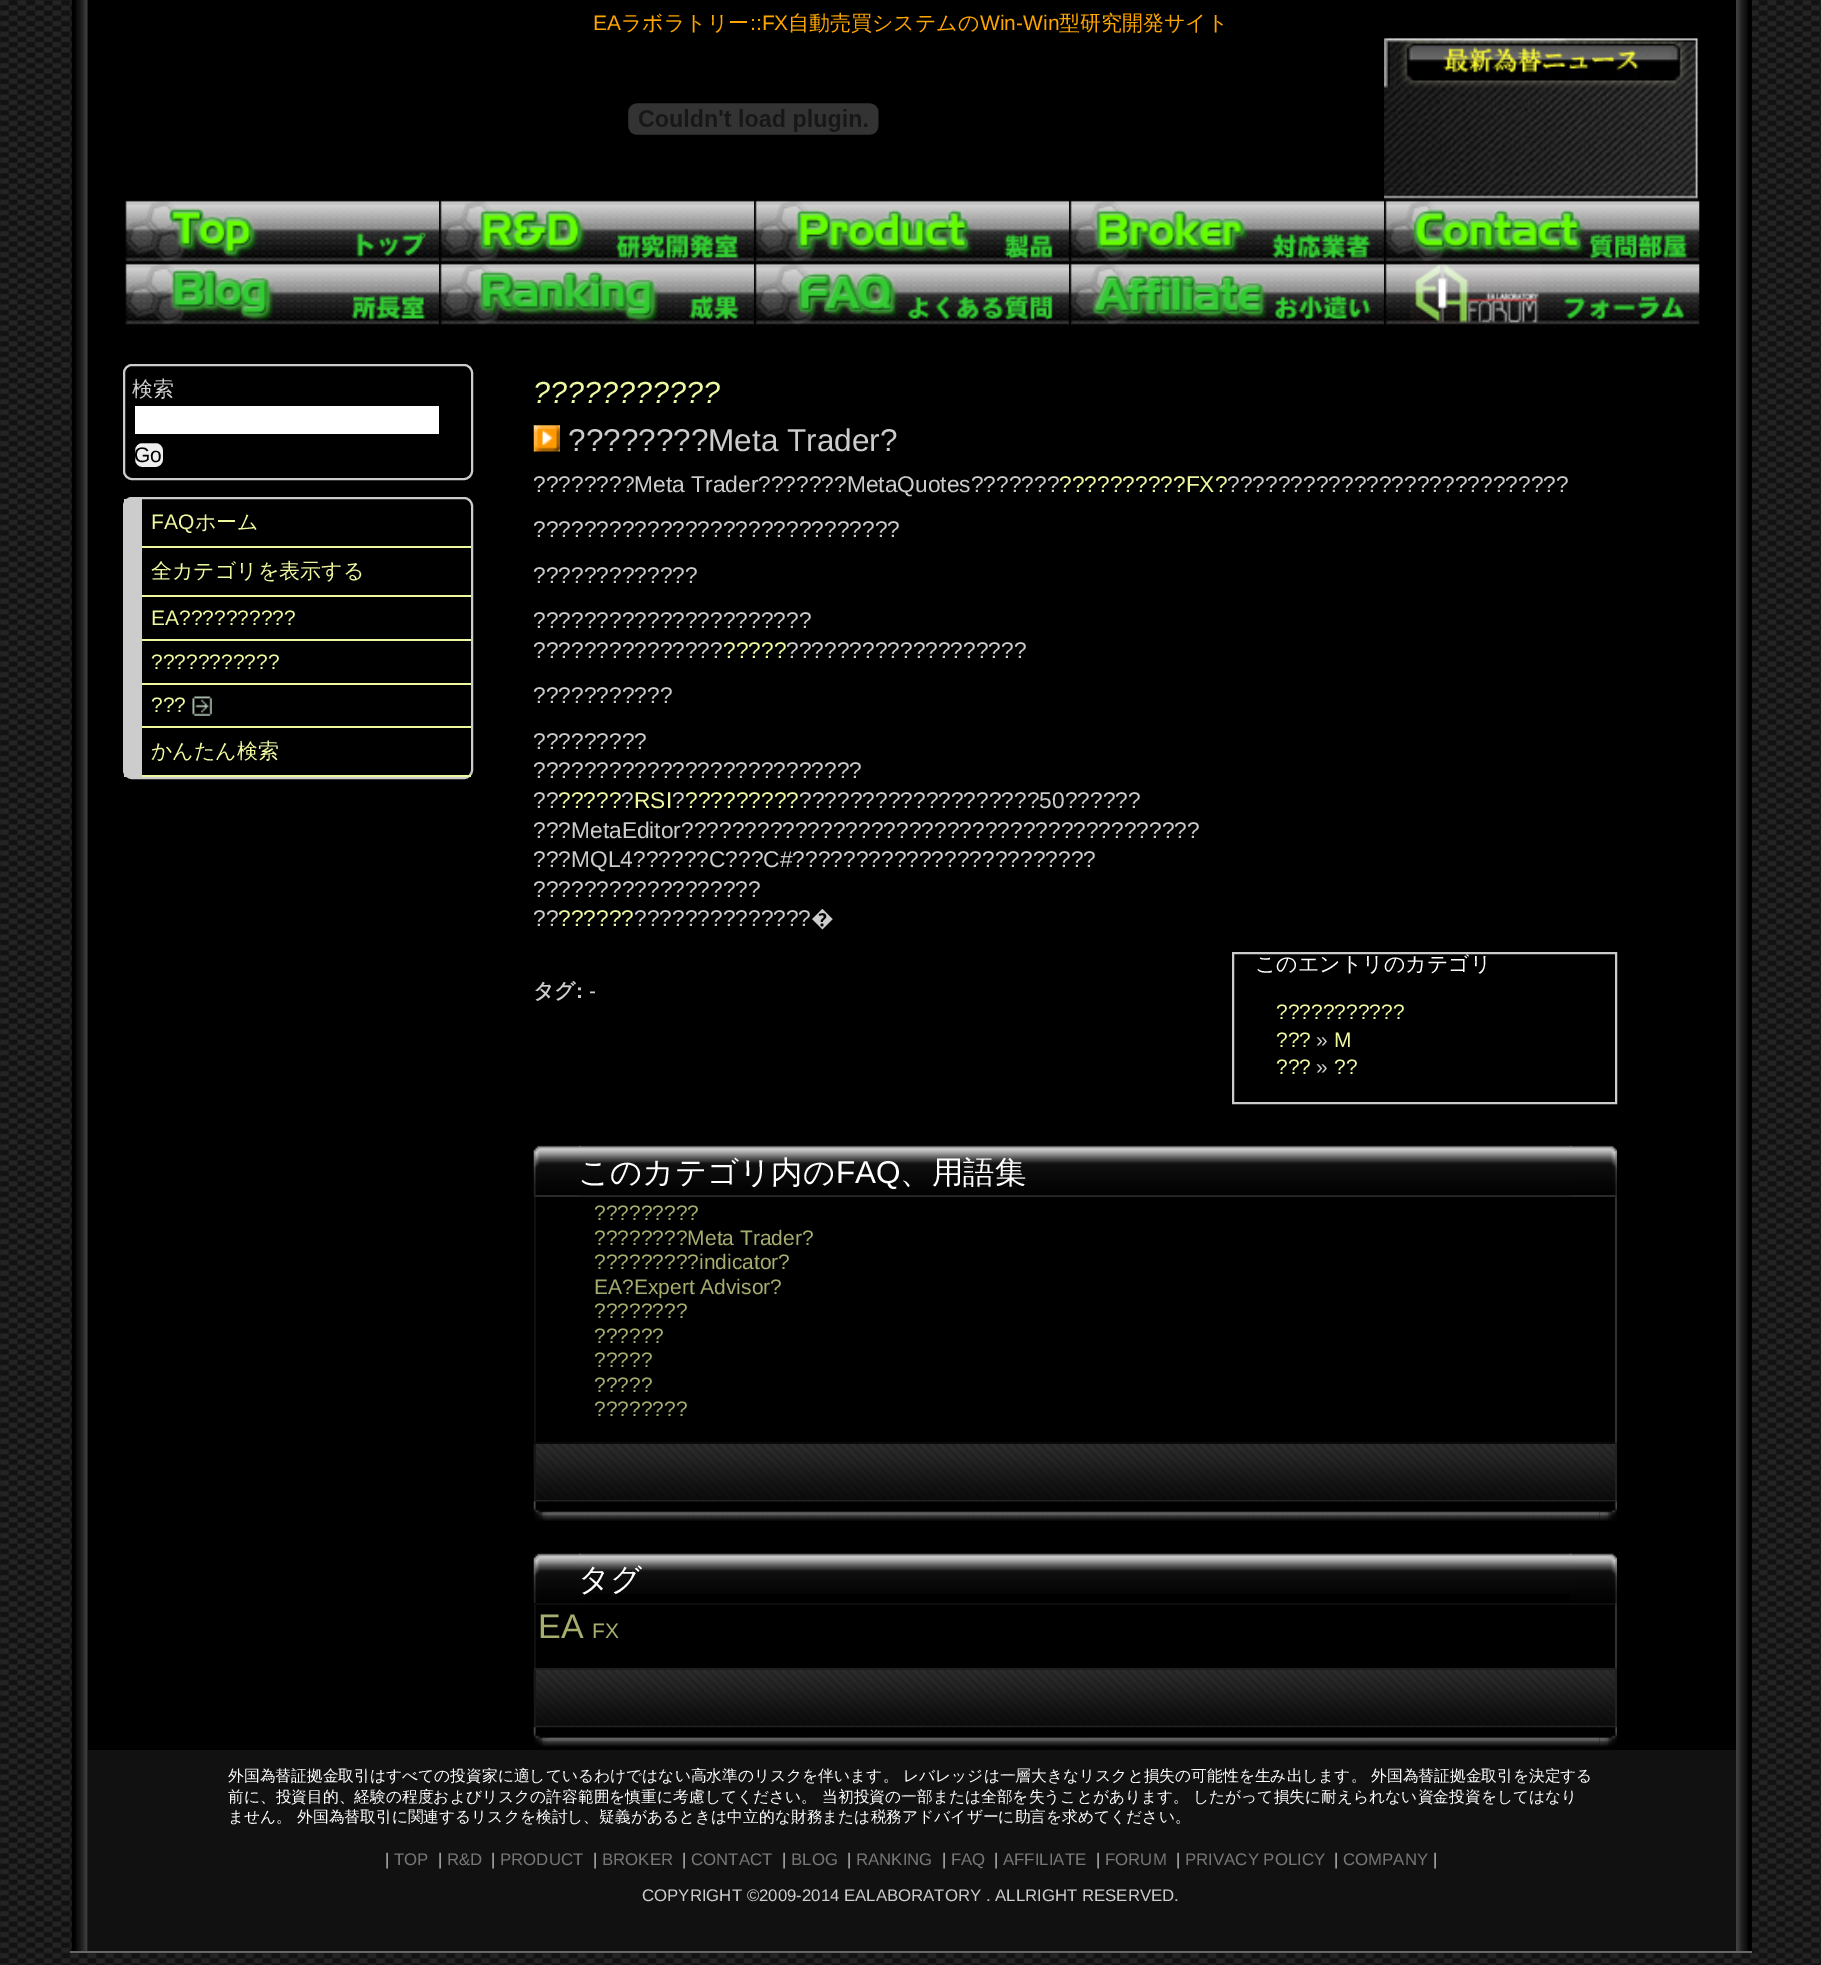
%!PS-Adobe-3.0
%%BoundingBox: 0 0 1821 1965
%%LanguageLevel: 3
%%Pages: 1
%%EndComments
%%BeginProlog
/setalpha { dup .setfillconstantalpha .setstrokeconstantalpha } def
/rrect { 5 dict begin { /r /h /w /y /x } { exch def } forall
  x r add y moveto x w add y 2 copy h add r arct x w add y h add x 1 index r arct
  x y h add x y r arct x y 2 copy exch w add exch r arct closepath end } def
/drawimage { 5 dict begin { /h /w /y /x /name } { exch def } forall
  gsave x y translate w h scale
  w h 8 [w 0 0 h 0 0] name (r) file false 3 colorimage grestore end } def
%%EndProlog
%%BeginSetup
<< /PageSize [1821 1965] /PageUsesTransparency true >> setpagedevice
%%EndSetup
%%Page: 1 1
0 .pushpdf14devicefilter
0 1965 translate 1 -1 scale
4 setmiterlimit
1 setgray
0 0 1821 1965 rectfill
(images/1.raw) 0 0 1821 1965 drawimage
0 setgray
87 0 1665 1951 rectfill
0.4 setgray
70 1951 1682 2 rectfill
(images/2.raw) 71 0 17 1951 drawimage
(images/3.raw) 628 103 251 32 drawimage
(images/4.raw) 1384 38 315 162 drawimage
(images/6.raw) 125 200 315 63 drawimage
(images/7.raw) 439 200 316 63 drawimage
(images/8.raw) 754 200 316 63 drawimage
(images/9.raw) 1069 200 316 63 drawimage
(images/10.raw) 1384 199 316 64 drawimage
(images/5.raw) 1384 38 314 162 drawimage
(images/11.raw) 125 263 315 63 drawimage
(images/12.raw) 439 263 316 63 drawimage
(images/13.raw) 754 263 316 63 drawimage
(images/14.raw) 1069 263 316 63 drawimage
(images/15.raw) 1384 262 316 64 drawimage
0.8 setgray
2 setlinewidth
124 365 348 114 8 rrect stroke
1 setgray
135 406 304 28 rectfill
0.937 setgray
134 442 30 26 8 rrect gsave fill grestore
0 setgray
stroke
0.8 setgray
124 498 348 280 8 rrect stroke
124 499 18 49 rectfill
0.937 0.969 0.624 setrgbcolor
142 546 329 2 rectfill
0.8 setgray
125 548 17 180 rectfill
0.937 0.969 0.624 setrgbcolor
142 595 329 2 rectfill
142 639 329 2 rectfill
142 683 329 2 rectfill
142 726 329 2 rectfill
(images/16.raw) 192 696 20 20 drawimage
0.8 setgray
124 728 18 49 rectfill
0.937 0.969 0.624 setrgbcolor
142 775 329 2 rectfill
(images/17.raw) 533 425 27 27 drawimage
0.8 setgray
1233 953 383 150 rectstroke
(images/18.raw) 533 1145 48 51 drawimage
(images/19.raw) 1569 1145 48 50 drawimage
0.333 setgray
1615 1195 2 247 rectfill
534 1195 2 247 rectfill
0.165 setgray
534 1195 1083 2 rectfill
(images/20.raw) 579 1145 993 51 drawimage
(images/21.raw) 533 1443 1082 58 drawimage
0.094 setgray
534 1442 1083 2 rectfill
0.133 setgray
1615 1442 2 60 rectfill
0.7 setalpha
1615 1195 2 249 rectfill
1 setalpha
534 1500 1083 2 rectfill
0.094 setgray
534 1442 2 60 rectfill
0.7 setalpha
0.133 setgray
534 1442 1083 2 rectfill
534 1195 2 249 rectfill
0 setgray
534 1197 1081 247 rectfill
1 setalpha
(images/22.raw) 533 1501 19 20 drawimage
(images/23.raw) 1599 1501 18 20 drawimage
(images/24.raw) 549 1501 1051 20 drawimage
(images/25.raw) 533 1553 48 50 drawimage
(images/26.raw) 1569 1553 48 50 drawimage
(images/27.raw) 579 1553 993 41 drawimage
0.333 setgray
1615 1603 2 65 rectfill
534 1603 2 65 rectfill
0.165 setgray
534 1603 1083 2 rectfill
(images/28.raw) 533 1669 1082 56 drawimage
0.094 setgray
534 1668 1083 2 rectfill
0.133 setgray
1615 1668 2 59 rectfill
0.7 setalpha
1615 1603 2 67 rectfill
1 setalpha
534 1726 1083 2 rectfill
0.094 setgray
534 1668 2 59 rectfill
0.7 setalpha
0.133 setgray
534 1668 1083 2 rectfill
534 1603 2 67 rectfill
0 setgray
534 1603 1081 65 rectfill
1 setalpha
0.067 setgray
536 1725 1079 1 rectfill
(images/29.raw) 533 1727 19 20 drawimage
(images/30.raw) 1599 1727 18 20 drawimage
(images/31.raw) 550 1727 1050 20 drawimage
88 1750 1648 201 rectfill
(images/32.raw) 1736 0 12 1951 drawimage
/LiberationSans-Regular [21 0 0 -21 0 0] selectfont
1 0.647 0 setrgbcolor
593 30 moveto (EA) show
/WenQuanYiZenHei-Medium [21 0 0 -21 0 0] selectfont
621 30 moveto (ラボラトリー) show
/LiberationSans-Regular [21 0 0 -21 0 0] selectfont
750 30 moveto (::FX) show
/WenQuanYiZenHei-Medium [21 0 0 -21 0 0] selectfont
788 30 moveto (自動売買システムの) show
/LiberationSans-Regular [21 0 0 -21 0 0] selectfont
980 30 moveto (Win-Win) show
/WenQuanYiZenHei-Medium [21 0 0 -21 0 0] selectfont
1059 30 moveto (型研究開発サイト) show
0.8 setgray
132 396 moveto (検索) show
/LiberationSans-Regular [21 0 0 -21 0 0] selectfont
0 setgray
134 462 moveto (Go) show
0.937 0.969 0.624 setrgbcolor
151 529 moveto (FAQ) show
/WenQuanYiZenHei-Medium [21 0 0 -21 0 0] selectfont
195 529 moveto (ホーム) show
151 578 moveto (全カテゴリを表示する) show
/LiberationSans-Regular [21 0 0 -21 0 0] selectfont
151 625 moveto (EA??????????) show
151 669 moveto (???????????) show
151 712 moveto (???) show
/WenQuanYiZenHei-Medium [21 0 0 -21 0 0] selectfont
151 758 moveto (かんたん検索) show
/LiberationSans-Italic [30.5 0 0 -30.5 0 0] selectfont
533 403 moveto (???????????) show
/LiberationSans-Regular [31.5 0 0 -31.5 0 0] selectfont
0.8 setgray
568 451 moveto (????????Meta Trader?) show
/LiberationSans-Regular [22.75 0 0 -22.75 0 0] selectfont
533 492 moveto (????????Meta Trader???????MetaQuotes???????) show
0.937 0.969 0.624 setrgbcolor
1059 492 moveto (??????????FX?) show
0.8 setgray
1227 492 moveto (???????????????????????????) show
533 537 moveto (?????????????????????????????) show
533 583 moveto (?????????????) show
533 628 moveto (??????????????????????) show
533 658 moveto (???????????????) show
0.937 0.969 0.624 setrgbcolor
723 658 moveto (?????) show
0.8 setgray
786 658 moveto (???????????????????) show
533 703 moveto (???????????) show
533 749 moveto (?????????) show
533 778 moveto (??????????????????????????) show
533 808 moveto (??) show
0.937 0.969 0.624 setrgbcolor
558 808 moveto (?????) show
0.8 setgray
621 808 moveto (?) show
0.937 0.969 0.624 setrgbcolor
634 808 moveto (RSI) show
0.8 setgray
672 808 moveto (?) show
0.937 0.969 0.624 setrgbcolor
685 808 moveto (?????????) show
0.8 setgray
799 808 moveto (???????????????????50??????) show
533 838 moveto (???MetaEditor?????????????????????????????????????????) show
533 867 moveto (???MQL4??????C???C#????????????????????????) show
533 897 moveto (??????????????????) show
533 926 moveto (??) show
0.937 0.969 0.624 setrgbcolor
558 926 moveto (??????) show
0.8 setgray
634 926 moveto (??????????????) show
/NotoSans-Regular [22.75 0 0 -22.75 0 0] selectfont
811 926 moveto (�) show
/WenQuanYiZenHei-Bold [21 0 0 -21 0 0] selectfont
533 998 moveto (タグ) show
/LiberationSans-Bold [21 0 0 -21 0 0] selectfont
576 998 moveto (:) show
/LiberationSans-Regular [21 0 0 -21 0 0] selectfont
589 998 moveto (-) show
/WenQuanYiZenHei-Medium [21 0 0 -21 0 0] selectfont
1 setgray
1255 971 moveto (このエントリのカテゴリ) show
/LiberationSans-Regular [21 0 0 -21 0 0] selectfont
0.937 0.969 0.624 setrgbcolor
1276 1019 moveto (???????????) show
1276 1047 moveto (???) show
0.8 setgray
1316 1047 moveto (») show
0.937 0.969 0.624 setrgbcolor
1334 1047 moveto (M) show
1276 1074 moveto (???) show
0.8 setgray
1316 1074 moveto (») show
0.937 0.969 0.624 setrgbcolor
1334 1074 moveto (??) show
/WenQuanYiZenHei-Medium [31.5 0 0 -31.5 0 0] selectfont
1 setgray
578 1183 moveto (このカテゴリ内の) show
/LiberationSans-Regular [31.5 0 0 -31.5 0 0] selectfont
836 1183 moveto (FAQ) show
/WenQuanYiZenHei-Medium [31.5 0 0 -31.5 0 0] selectfont
900 1183 moveto (、用語集) show
/LiberationSans-Regular [21 0 0 -21 0 0] selectfont
0.655 0.678 0.435 setrgbcolor
594 1220 moveto (?????????) show
594 1245 moveto (????????Meta Trader?) show
594 1269 moveto (?????????indicator?) show
594 1294 moveto (EA?Expert Advisor?) show
594 1318 moveto (????????) show
594 1343 moveto (??????) show
594 1367 moveto (?????) show
594 1392 moveto (?????) show
594 1416 moveto (????????) show
/WenQuanYiZenHei-Medium [31.5 0 0 -31.5 0 0] selectfont
1 setgray
578 1590 moveto (タグ) show
/LiberationSans-Regular [34 0 0 -34 0 0] selectfont
0.655 0.678 0.435 setrgbcolor
538 1638 moveto (EA) show
/LiberationSans-Regular [21 0 0 -21 0 0] selectfont
592 1638 moveto (FX) show
/WenQuanYiZenHei-Medium [15.75 0 0 -15.75 0 0] selectfont
1 setgray
228 1781 moveto (外国為替証拠金取引はすべての投資家に適しているわけではない高水準のリスクを伴います。) show
903 1781 moveto (レバレッジは一層大きなリスクと損失の可能性を生み出します。) show
1371 1781 moveto (外国為替証拠金取引を決定する) show
228 1802 moveto (前に、投資目的、経験の程度およびリスクの許容範囲を慎重に考慮してください。) show
822 1802 moveto (当初投資の一部または全部を失うことがあります。) show
1193 1802 moveto (したがって損失に耐えられない資金投資をしてはなり) show
228 1822 moveto (ません。) show
297 1822 moveto (外国為替取引に関連するリスクを検討し、疑義があるときは中立的な財務または税務アドバイザーに助言を求めてください。) show
/LiberationSans-Regular [16.8 0 0 -16.8 0 0] selectfont
0.8 setgray
385 1865 moveto (|) show
0.467 setgray
394 1865 moveto (TOP) show
0.8 setgray
438 1865 moveto (|) show
0.467 setgray
447 1865 moveto (R&D) show
0.8 setgray
491 1865 moveto (|) show
0.467 setgray
500 1865 moveto (PRODUCT) show
0.8 setgray
593 1865 moveto (|) show
0.467 setgray
602 1865 moveto (BROKER) show
0.8 setgray
682 1865 moveto (|) show
0.467 setgray
691 1865 moveto (CONTACT) show
0.8 setgray
782 1865 moveto (|) show
0.467 setgray
791 1865 moveto (BLOG) show
0.8 setgray
847 1865 moveto (|) show
0.467 setgray
856 1865 moveto (RANKING) show
0.8 setgray
942 1865 moveto (|) show
0.467 setgray
951 1865 moveto (FAQ) show
0.8 setgray
994 1865 moveto (|) show
0.467 setgray
1003 1865 moveto (AFFILIATE) show
0.8 setgray
1096 1865 moveto (|) show
0.467 setgray
1105 1865 moveto (FORUM) show
0.8 setgray
1176 1865 moveto (|) show
0.467 setgray
1185 1865 moveto (PRIVACY POLICY) show
0.8 setgray
1334 1865 moveto (|) show
0.467 setgray
1343 1865 moveto (COMPANY) show
0.8 setgray
1433 1865 moveto (|) show
642 1901 moveto (COPYRIGHT ©2009-2014 EALABORATORY . ALLRIGHT RESERVED.) show
.poppdf14devicefilter showpage
%%EOF
